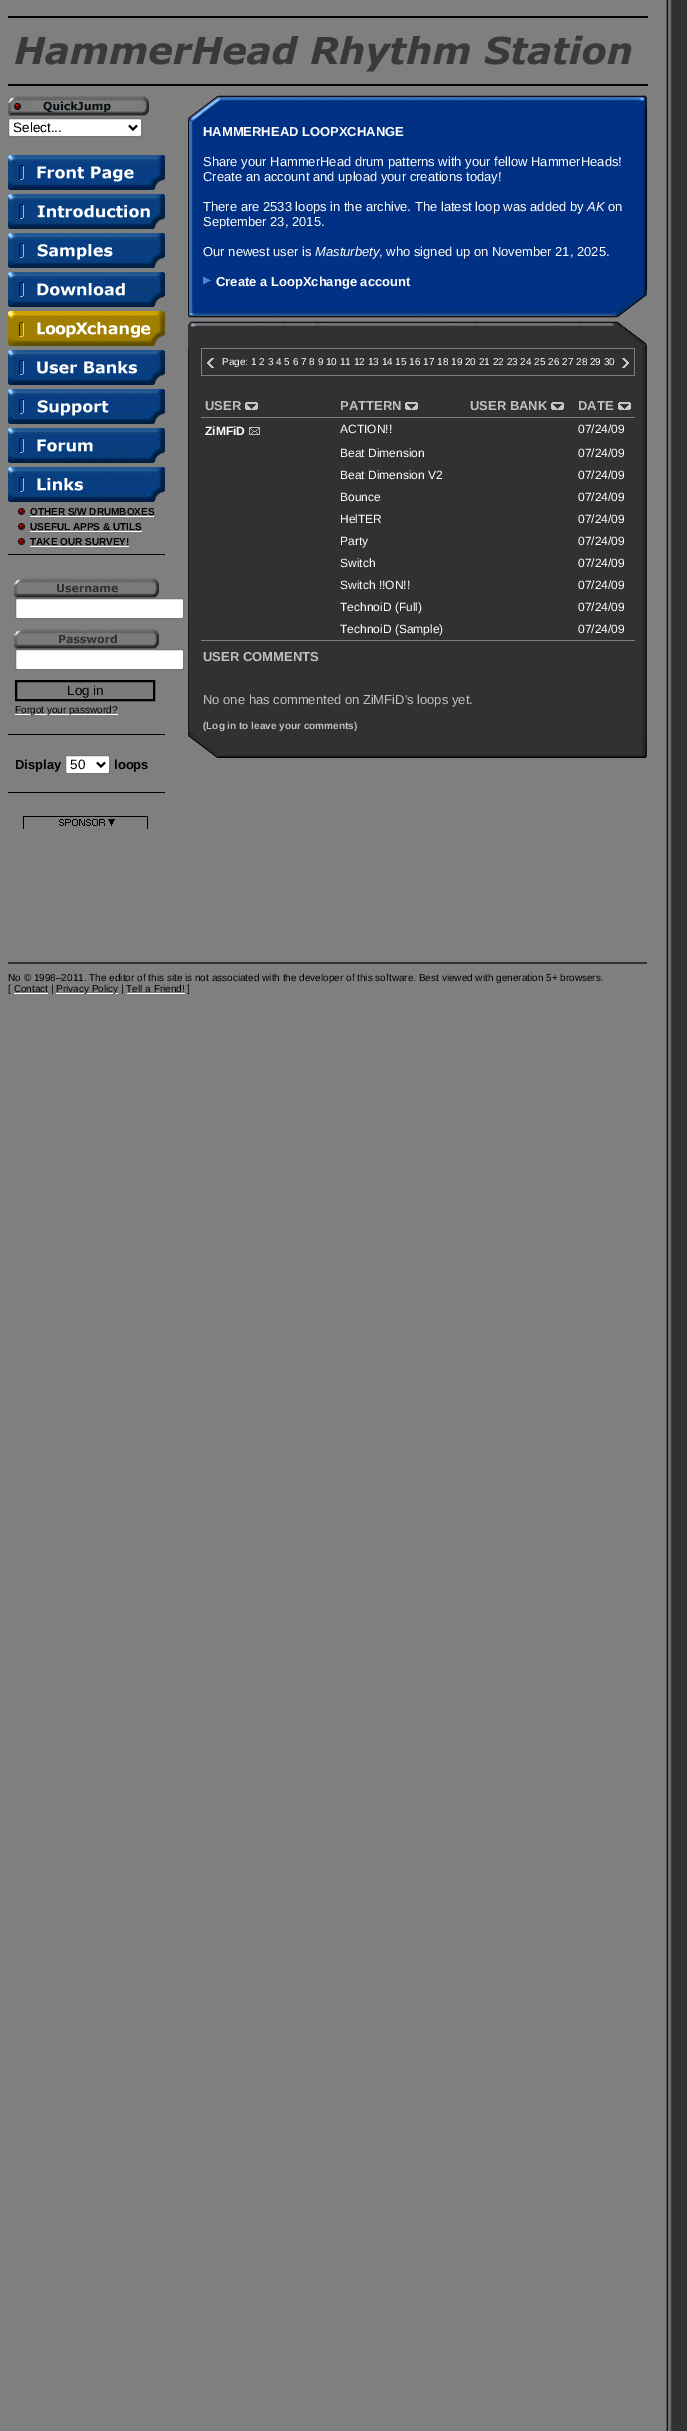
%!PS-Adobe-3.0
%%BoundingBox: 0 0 687 2431
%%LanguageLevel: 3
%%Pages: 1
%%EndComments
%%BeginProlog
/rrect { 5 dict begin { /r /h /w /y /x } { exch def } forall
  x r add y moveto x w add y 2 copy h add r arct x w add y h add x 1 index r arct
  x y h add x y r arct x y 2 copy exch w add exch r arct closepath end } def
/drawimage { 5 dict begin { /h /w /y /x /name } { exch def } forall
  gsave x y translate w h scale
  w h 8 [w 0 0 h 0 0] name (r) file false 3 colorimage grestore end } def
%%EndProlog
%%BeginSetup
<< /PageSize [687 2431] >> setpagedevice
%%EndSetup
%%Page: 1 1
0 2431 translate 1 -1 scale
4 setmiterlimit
0.498 setgray
0 0 687 2431 rectfill
(images/1.raw) 666 0 21 2431 drawimage
0 setgray
8 16 640 2 rectfill
(images/2.raw) 15 35 617 37 drawimage
8 84 640 2 rectfill
(images/3.raw) 8 96 141 20 drawimage
1 setgray
8.5 118.5 133 18 1.5 rrect gsave fill grestore
0.463 setgray
stroke
0 setgray
2 setlinewidth
newpath 129 125.5 moveto 133 129.5 lineto 137 125.5 lineto stroke
(images/4.raw) 8 155 16 35 drawimage
(images/5.raw) 24 155 141 35 drawimage
(images/4.raw) 8 194 16 35 drawimage
(images/6.raw) 24 194 141 35 drawimage
(images/4.raw) 8 233 16 35 drawimage
(images/7.raw) 24 233 141 35 drawimage
(images/4.raw) 8 272 16 35 drawimage
(images/8.raw) 24 272 141 35 drawimage
(images/9.raw) 8 311 16 35 drawimage
(images/10.raw) 24 311 141 35 drawimage
(images/4.raw) 8 350 16 35 drawimage
(images/11.raw) 24 350 141 35 drawimage
(images/4.raw) 8 389 16 35 drawimage
(images/12.raw) 24 389 141 35 drawimage
(images/4.raw) 8 428 16 35 drawimage
(images/13.raw) 24 428 141 35 drawimage
(images/4.raw) 8 467 16 35 drawimage
(images/14.raw) 24 467 141 35 drawimage
(images/15.raw) 18 508 7 7 drawimage
1 setgray
30 516 124 1 rectfill
(images/15.raw) 18 523 7 7 drawimage
30 531 112 1 rectfill
(images/15.raw) 18 538 7 7 drawimage
30 546 99 1 rectfill
0 setgray
8 554 157 1 rectfill
(images/16.raw) 14 578 145 20 drawimage
1 setgray
15.5 598.5 168 20 1.5 rrect gsave fill grestore
0.463 setgray
1 setlinewidth
stroke
(images/17.raw) 14 629 145 20 drawimage
1 setgray
15.5 649.5 168 20 1.5 rrect gsave fill grestore
0.463 setgray
stroke
0.482 setgray
newpath 16 681 moveto 154 681 lineto 154 700 lineto 16 700 lineto closepath gsave fill grestore
0 setgray
2 setlinewidth
stroke
1 setgray
15 714 103 1 rectfill
0 setgray
8 734 157 1 rectfill
1 setgray
65.5 755.5 44 18 1.5 rrect gsave fill grestore
0.463 setgray
1 setlinewidth
stroke
0 setgray
2 setlinewidth
newpath 97 762.5 moveto 101 766.5 lineto 105 762.5 lineto stroke
8 792 157 1 rectfill
(images/18.raw) 23 816 125 13 drawimage
(images/19.raw) 188 95 459 28 drawimage
(images/20.raw) 188 123 459 167 drawimage
(images/21.raw) 203 277 8 7 drawimage
(images/22.raw) 188 290 459 28 drawimage
(images/23.raw) 188 321 459 27 drawimage
(images/24.raw) 188 348 459 293 drawimage
0.498 setgray
201 348 434 1 rectfill
201 640 434 1 rectfill
634 349 1 27 rectfill
201 375 434 1 rectfill
201 349 1 27 rectfill
(images/25.raw) 207 358 7 10 drawimage
(images/26.raw) 618 358 11 10 drawimage
(images/27.raw) 245 402 13 8 drawimage
(images/27.raw) 405 402 13 8 drawimage
(images/27.raw) 551 402 13 8 drawimage
(images/27.raw) 618 402 13 8 drawimage
201 417 434 1 rectfill
(images/28.raw) 249 427 11 8 drawimage
(images/29.raw) 188 641 459 91 drawimage
(images/30.raw) 188 732 459 26 drawimage
0.192 setgray
8 962 639 2 rectfill
1 setgray
56 993 62 1 rectfill
/LiberationSans-Regular [13.5 0 0 -13.5 0 0] selectfont
0 setgray
13 132 moveto (Select...) show
/LiberationSans-Bold [10 0 0 -10 0 0] selectfont
30 515 moveto (OTHER S/W DRUMBOXES) show
30 530 moveto (USEFUL APPS & UTILS) show
30 545 moveto (TAKE OUR SURVEY!) show
/LiberationSans-Regular [13.5 0 0 -13.5 0 0] selectfont
67 695 moveto (Log in) show
/LiberationSans-Regular [10 0 0 -10 0 0] selectfont
15 713 moveto (Forgot your password?) show
/LiberationSans-Bold [13 0 0 -13 0 0] selectfont
15 769 moveto (Display) show
/LiberationSans-Regular [13.5 0 0 -13.5 0 0] selectfont
70 769 moveto (50) show
/LiberationSans-Bold [13 0 0 -13 0 0] selectfont
114 769 moveto (loops) show
1 setgray
203 136 moveto (HAMMERHEAD LOOPXCHANGE) show
/LiberationSans-Regular [13 0 0 -13 0 0] selectfont
203 166 moveto (Share your HammerHead drum patterns with your fellow HammerHeads!) show
203 181 moveto (Create an account and upload your creations today!) show
203 211 moveto (There are 2533 loops in the archive. The latest loop was added by) show
/LiberationSans-Italic [13 0 0 -13 0 0] selectfont
587 211 moveto (AK) show
/LiberationSans-Regular [13 0 0 -13 0 0] selectfont
608 211 moveto (on) show
203 226 moveto (September 23, 2015.) show
203 256 moveto (Our newest user is) show
/LiberationSans-Italic [13 0 0 -13 0 0] selectfont
315 256 moveto (Masturbety) show
/LiberationSans-Regular [13 0 0 -13 0 0] selectfont
379 256 moveto (, who signed up on November 21, 2025.) show
/LiberationSans-Bold [13 0 0 -13 0 0] selectfont
216 286 moveto (Create a LoopXchange account) show
/LiberationSans-Regular [10 0 0 -10 0 0] selectfont
222 365 moveto (Page: 1 2 3 4 5 6 7 8 9 10 11 12 13 14 15 16 17 18 19 20 21 22 23 24 25 26 27 28 29 30) show
/LiberationSans-Bold [13 0 0 -13 0 0] selectfont
0.753 setgray
205 410 moveto (USER) show
340 410 moveto (PATTERN) show
470 410 moveto (USER BANK) show
578 410 moveto (DATE) show
/LiberationSans-Bold [12 0 0 -12 0 0] selectfont
1 setgray
205 435 moveto (ZiMFiD) show
/LiberationSans-Regular [12 0 0 -12 0 0] selectfont
340 433 moveto (ACTION!!) show
578 433 moveto (07/24/09) show
340 457 moveto (Beat Dimension) show
578 457 moveto (07/24/09) show
340 479 moveto (Beat Dimension V2) show
578 479 moveto (07/24/09) show
340 501 moveto (Bounce) show
578 501 moveto (07/24/09) show
340 523 moveto (HelTER) show
578 523 moveto (07/24/09) show
340 545 moveto (Party) show
578 545 moveto (07/24/09) show
340 567 moveto (Switch) show
578 567 moveto (07/24/09) show
340 589 moveto (Switch !!ON!!) show
578 589 moveto (07/24/09) show
340 611 moveto (TechnoiD \(Full\)) show
578 611 moveto (07/24/09) show
340 633 moveto (TechnoiD \(Sample\)) show
578 633 moveto (07/24/09) show
/LiberationSans-Bold [13 0 0 -13 0 0] selectfont
0.753 setgray
203 661 moveto (USER COMMENTS) show
/LiberationSans-Regular [13 0 0 -13 0 0] selectfont
203 704 moveto (No one has commented on ZiMFiD's loops yet.) show
/LiberationSans-Bold [10 0 0 -10 0 0] selectfont
203 729 moveto (\(Log in to leave your comments\)) show
/LiberationSans-Regular [10 0 0 -10 0 0] selectfont
0 setgray
8 981 moveto (No © 1998–2011. The editor of this site is not associated with the developer of this software. Best viewed with generation 5+ browsers.) show
8 992 moveto ([ Contact |) show
1 setgray
14 993 34 1 rectfill
0 setgray
56 992 moveto (Privacy Policy | Tell a Friend! ]) show
1 setgray
127 993 58 1 rectfill
showpage
%%EOF
